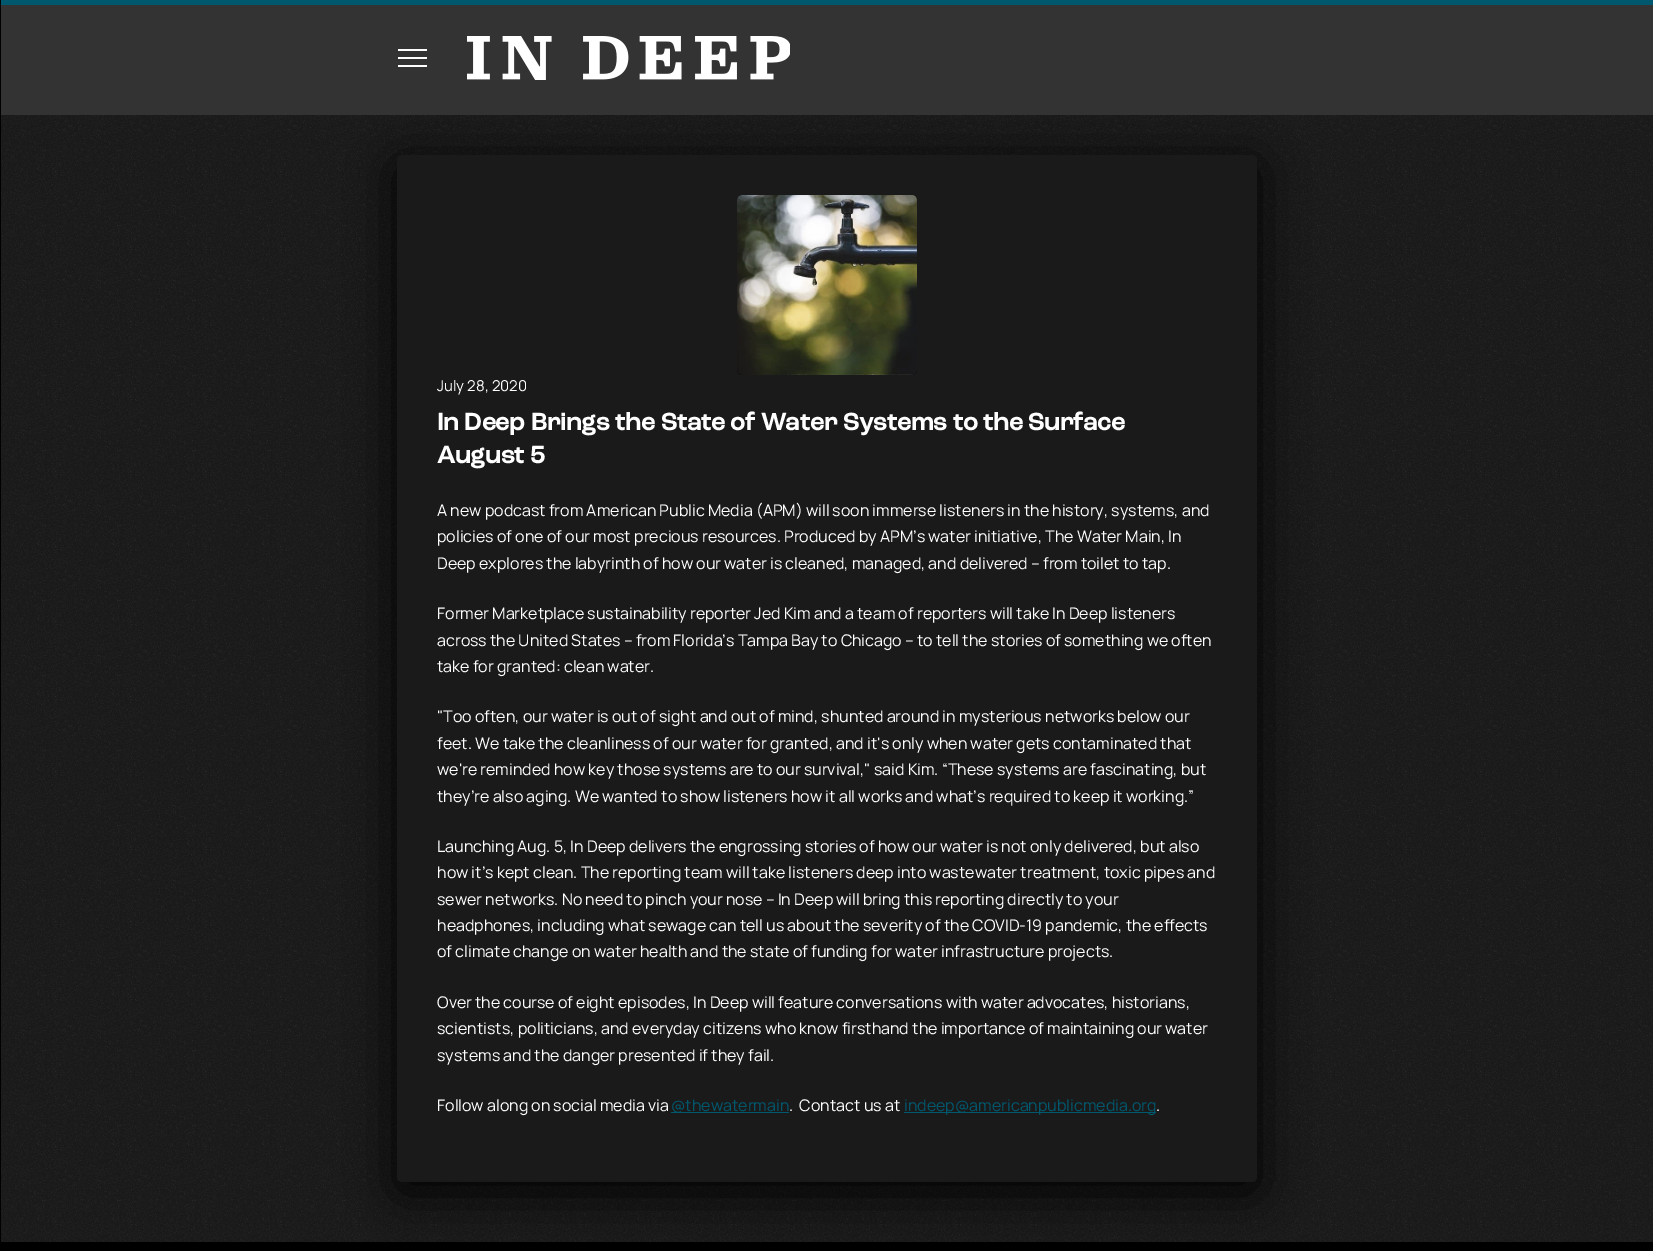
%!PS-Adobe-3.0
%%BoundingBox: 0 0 1653 1251
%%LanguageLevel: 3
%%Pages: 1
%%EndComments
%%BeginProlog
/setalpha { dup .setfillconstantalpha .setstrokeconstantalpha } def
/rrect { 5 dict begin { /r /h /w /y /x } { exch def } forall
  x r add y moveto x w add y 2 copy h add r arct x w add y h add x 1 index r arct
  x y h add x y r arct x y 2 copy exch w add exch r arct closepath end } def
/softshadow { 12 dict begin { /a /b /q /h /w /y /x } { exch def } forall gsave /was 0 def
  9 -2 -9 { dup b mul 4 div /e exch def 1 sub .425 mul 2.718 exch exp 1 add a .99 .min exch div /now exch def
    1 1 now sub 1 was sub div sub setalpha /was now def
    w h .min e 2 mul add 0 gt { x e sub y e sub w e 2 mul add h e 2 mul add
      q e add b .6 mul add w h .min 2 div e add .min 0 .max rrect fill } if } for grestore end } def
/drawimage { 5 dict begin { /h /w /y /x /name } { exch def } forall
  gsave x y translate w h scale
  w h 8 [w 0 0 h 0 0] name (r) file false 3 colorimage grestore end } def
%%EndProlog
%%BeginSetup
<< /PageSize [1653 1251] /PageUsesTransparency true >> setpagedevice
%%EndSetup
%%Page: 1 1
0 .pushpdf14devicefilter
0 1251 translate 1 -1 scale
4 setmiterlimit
0.102 setgray
0 0 1653 1251 rectfill
(images/1.raw) 0 115 1653 1127 drawimage
0 setgray
397 165 860 1027 5 25 1 softshadow
0.2 setgray
0 5 1653 110 rectfill
0 0.345 0.435 setrgbcolor
0 0 1653 5 rectfill
0.98 setalpha
0 setgray
0 0 1 1242 rectfill
1 setalpha
1 setgray
398 49 29 2 rectfill
398 57 29 2 rectfill
398 65 29 2 rectfill
(images/2.raw) 467 36 323 44 drawimage
0.102 setgray
397 155 860 1027 5 rrect fill
(images/3.raw) 737 195 180 180 drawimage
0 0.345 0.435 setrgbcolor
671 1112 118 1 rectfill
904 1112 252 1 rectfill
0 setgray
0 1242 1653 9 rectfill
/Manrope-Regular [15 0 0 -15 0 0] selectfont
1 setgray
437 391 moveto (July 28, 2020) show
/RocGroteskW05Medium-Bold [25 0 0 -25 0 0] selectfont
437 430 moveto -0.13 0 (In Deep Brings the State of Water Systems to the Surface) ashow
437 463 moveto -0.13 0 (August 5) ashow
/Manrope-Regular [16 0 0 -16 0 0] selectfont
437 516 moveto (A new podcast from American Public Media \(APM\) will soon immerse listeners in the history, systems, and) show
437 542 moveto (policies of one of our most precious resources. Produced by APM’s water initiative, The Water Main, In) show
437 569 moveto (Deep explores the labyrinth of how our water is cleaned, managed, and delivered – from toilet to tap.) show
437 619 moveto (Former Marketplace sustainability reporter Jed Kim and a team of reporters will take In Deep listeners) show
437 646 moveto (across the United States – from Florida’s Tampa Bay to Chicago – to tell the stories of something we often) show
437 672 moveto (take for granted: clean water.) show
437 722 moveto ("Too often, our water is out of sight and out of mind, shunted around in mysterious networks below our) show
437 749 moveto (feet. We take the cleanliness of our water for granted, and it's only when water gets contaminated that) show
437 775 moveto (we're reminded how key those systems are to our survival," said Kim. “These systems are fascinating, but) show
437 802 moveto (they’re also aging. We wanted to show listeners how it all works and what’s required to keep it working.”) show
437 852 moveto (Launching Aug. 5, In Deep delivers the engrossing stories of how our water is not only delivered, but also) show
437 878 moveto (how it’s kept clean. The reporting team will take listeners deep into wastewater treatment, toxic pipes and) show
437 905 moveto (sewer networks. No need to pinch your nose – In Deep will bring this reporting directly to your) show
437 931 moveto (headphones, including what sewage can tell us about the severity of the COVID-19 pandemic, the effects) show
437 957 moveto (of climate change on water health and the state of funding for water infrastructure projects.) show
437 1008 moveto (Over the course of eight episodes, In Deep will feature conversations with water advocates, historians,) show
437 1034 moveto (scientists, politicians, and everyday citizens who know firsthand the importance of maintaining our water) show
437 1061 moveto (systems and the danger presented if they fail.) show
437 1111 moveto (Follow along on social media via) show
0 0.345 0.435 setrgbcolor
671 1111 moveto (@thewatermain) show
1 setgray
789 1111 moveto (.  Contact us at) show
0 0.345 0.435 setrgbcolor
904 1111 moveto (indeep@americanpublicmedia.org) show
1 setgray
1156 1111 moveto (.) show
.poppdf14devicefilter showpage
%%EOF
